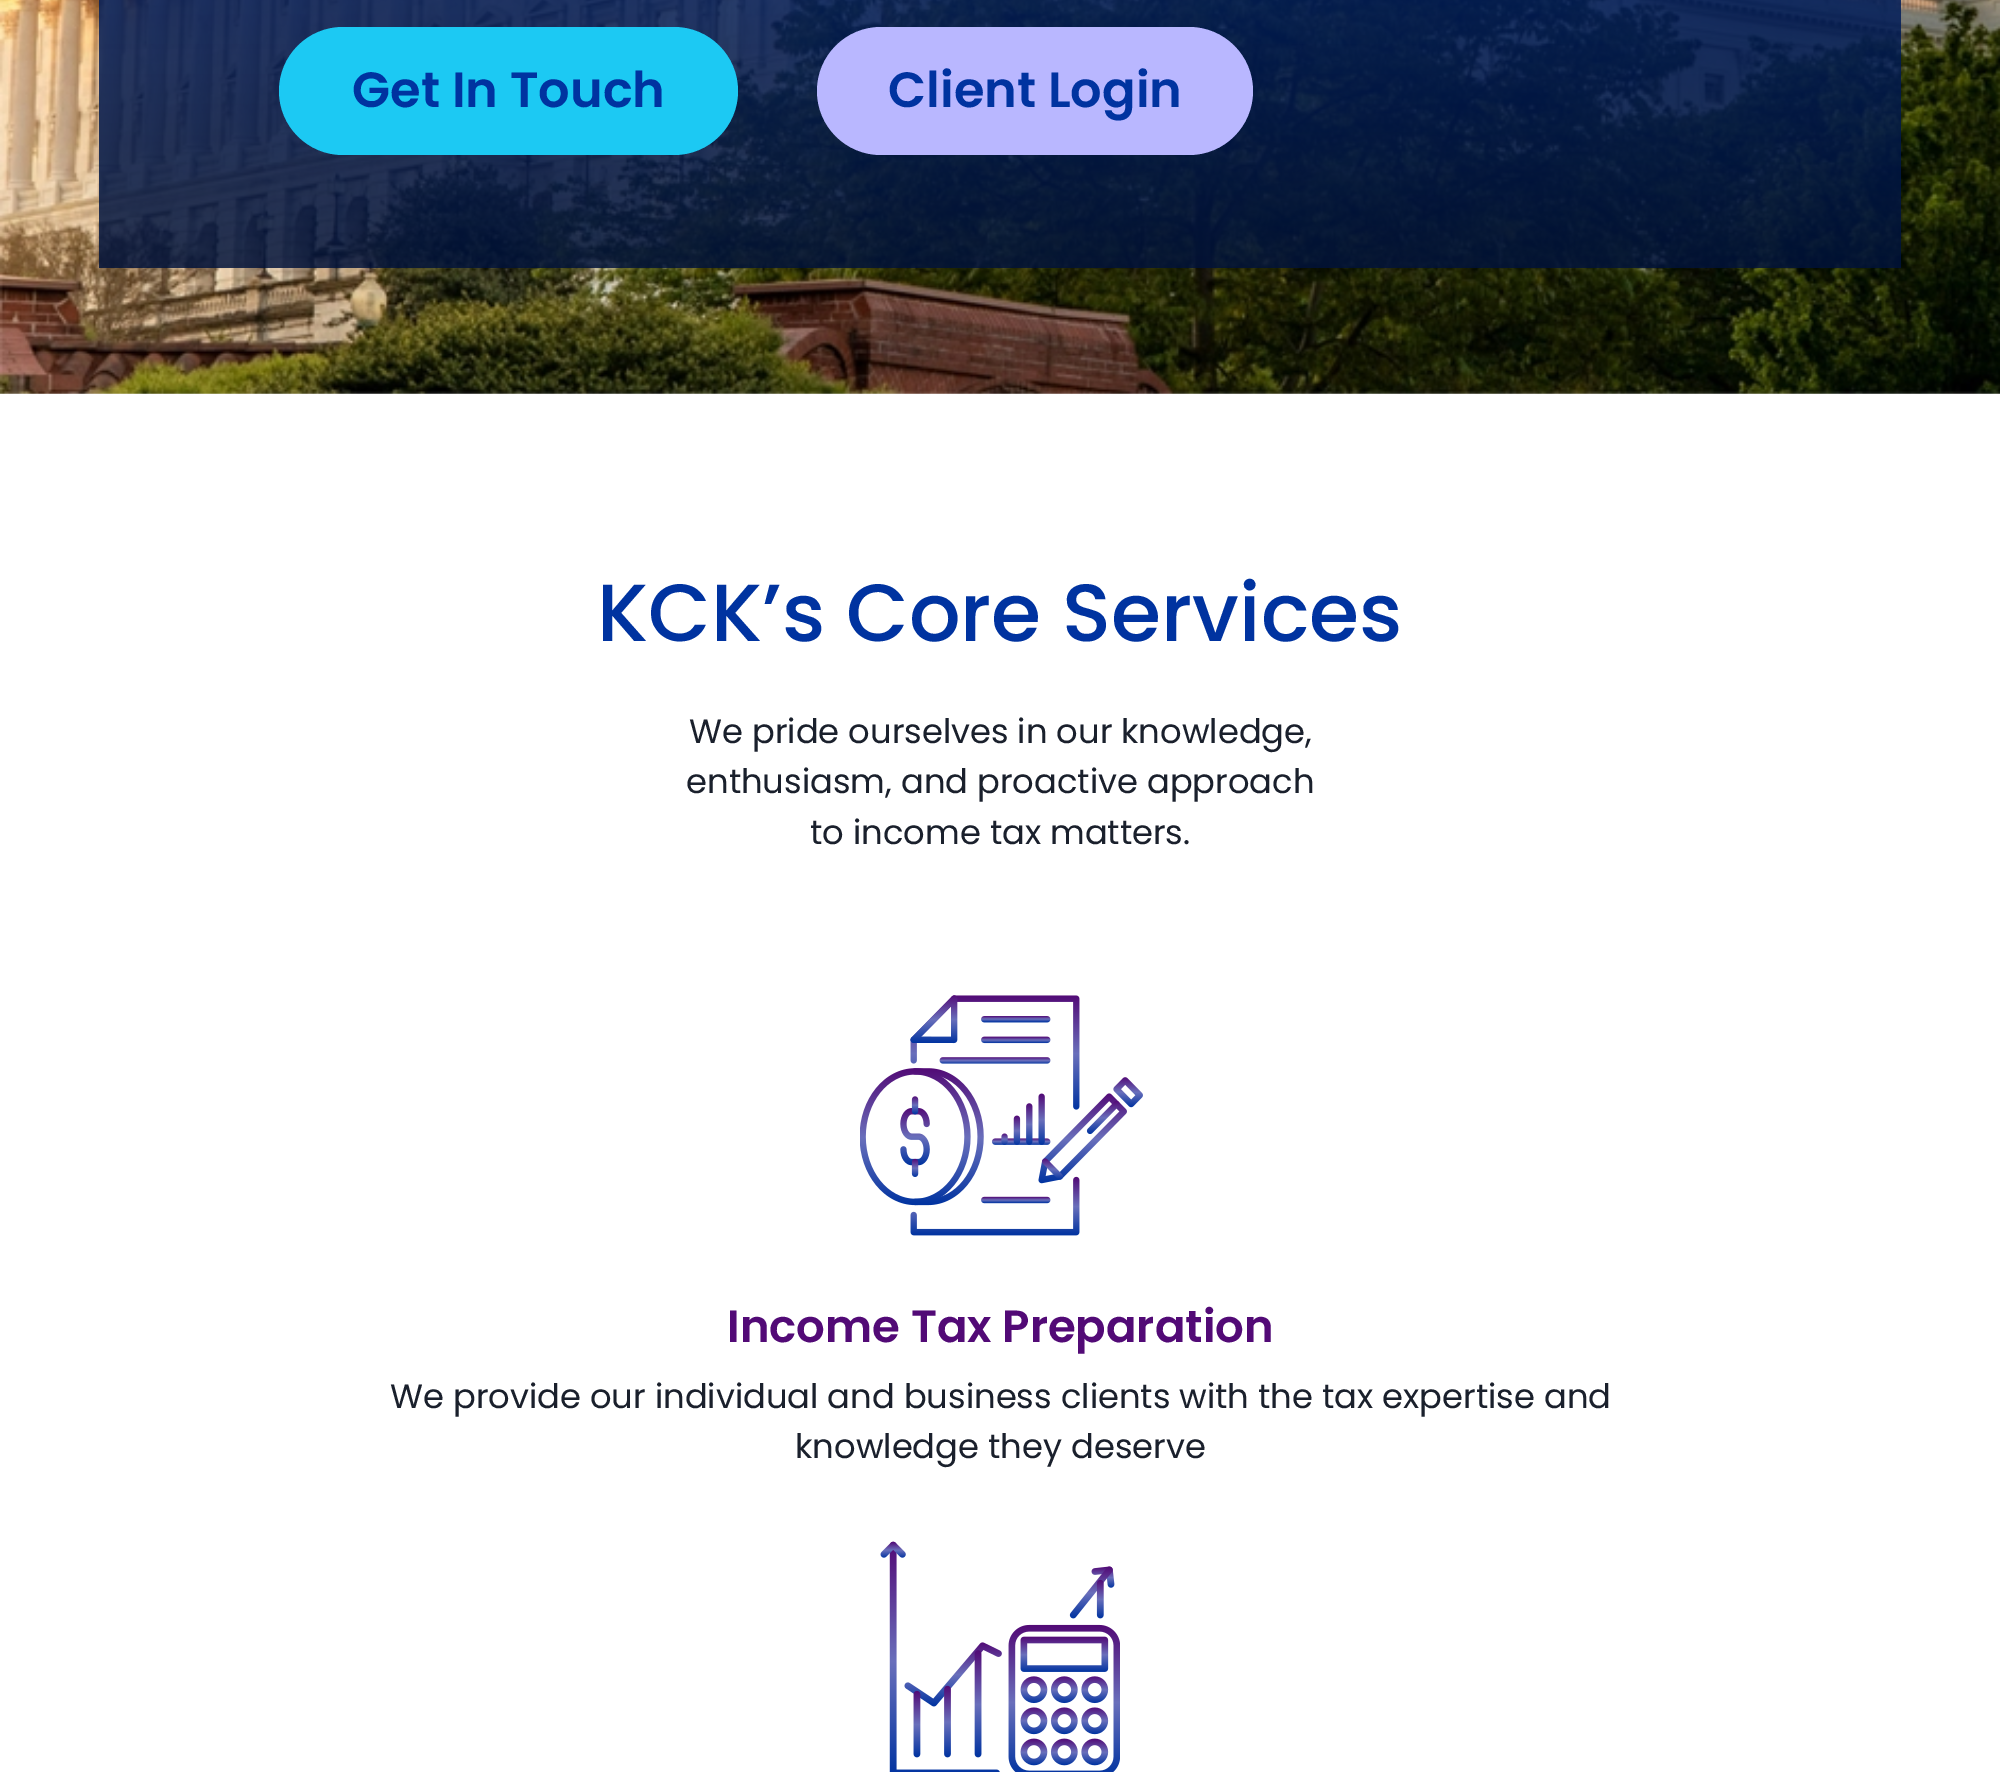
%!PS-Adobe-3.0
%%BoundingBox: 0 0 2000 1772
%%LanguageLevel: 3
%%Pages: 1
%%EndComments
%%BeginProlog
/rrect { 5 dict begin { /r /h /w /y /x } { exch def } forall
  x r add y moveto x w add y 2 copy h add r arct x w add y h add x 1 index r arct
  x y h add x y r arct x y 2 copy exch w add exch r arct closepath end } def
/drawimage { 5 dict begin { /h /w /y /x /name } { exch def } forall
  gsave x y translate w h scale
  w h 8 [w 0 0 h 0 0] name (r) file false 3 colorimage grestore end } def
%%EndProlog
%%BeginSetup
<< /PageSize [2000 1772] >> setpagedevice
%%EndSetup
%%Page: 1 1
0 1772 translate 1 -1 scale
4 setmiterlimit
1 setgray
0 0 2000 1772 rectfill
(images/1.raw) 0 0 2000 394 drawimage
0.11 0.788 0.953 setrgbcolor
279 27 459 128 64 rrect fill
0.725 0.718 1 setrgbcolor
817 27 436 128 64 rrect fill
(images/2.raw) 860 995 283 241 drawimage
(images/3.raw) 880 1541 240 231 drawimage
/Poppins-SemiBold [49.5 0 0 -49.5 0 0] selectfont
0 0.2 0.627 setrgbcolor
352 107 moveto (Get In Touch) show
888 107 moveto (Client Login) show
/Poppins-Medium [81 0 0 -81 0 0] selectfont
597 641 moveto (KCK’s Core Services) show
/Poppins-Regular [33.75 0 0 -33.75 0 0] selectfont
0.102 0.125 0.173 setrgbcolor
689 743 moveto (We pride ourselves in our knowledge,) show
686 793 moveto (enthusiasm, and proactive approach) show
810 844 moveto (to income tax matters.) show
/Poppins-SemiBold [45 0 0 -45 0 0] selectfont
0.322 0.039 0.463 setrgbcolor
727 1342 moveto (Income Tax Preparation) show
/Poppins-Regular [33.75 0 0 -33.75 0 0] selectfont
0.102 0.125 0.173 setrgbcolor
390 1408 moveto (We provide our individual and business clients with the tax expertise and) show
795 1458 moveto (knowledge they deserve) show
showpage
%%EOF
